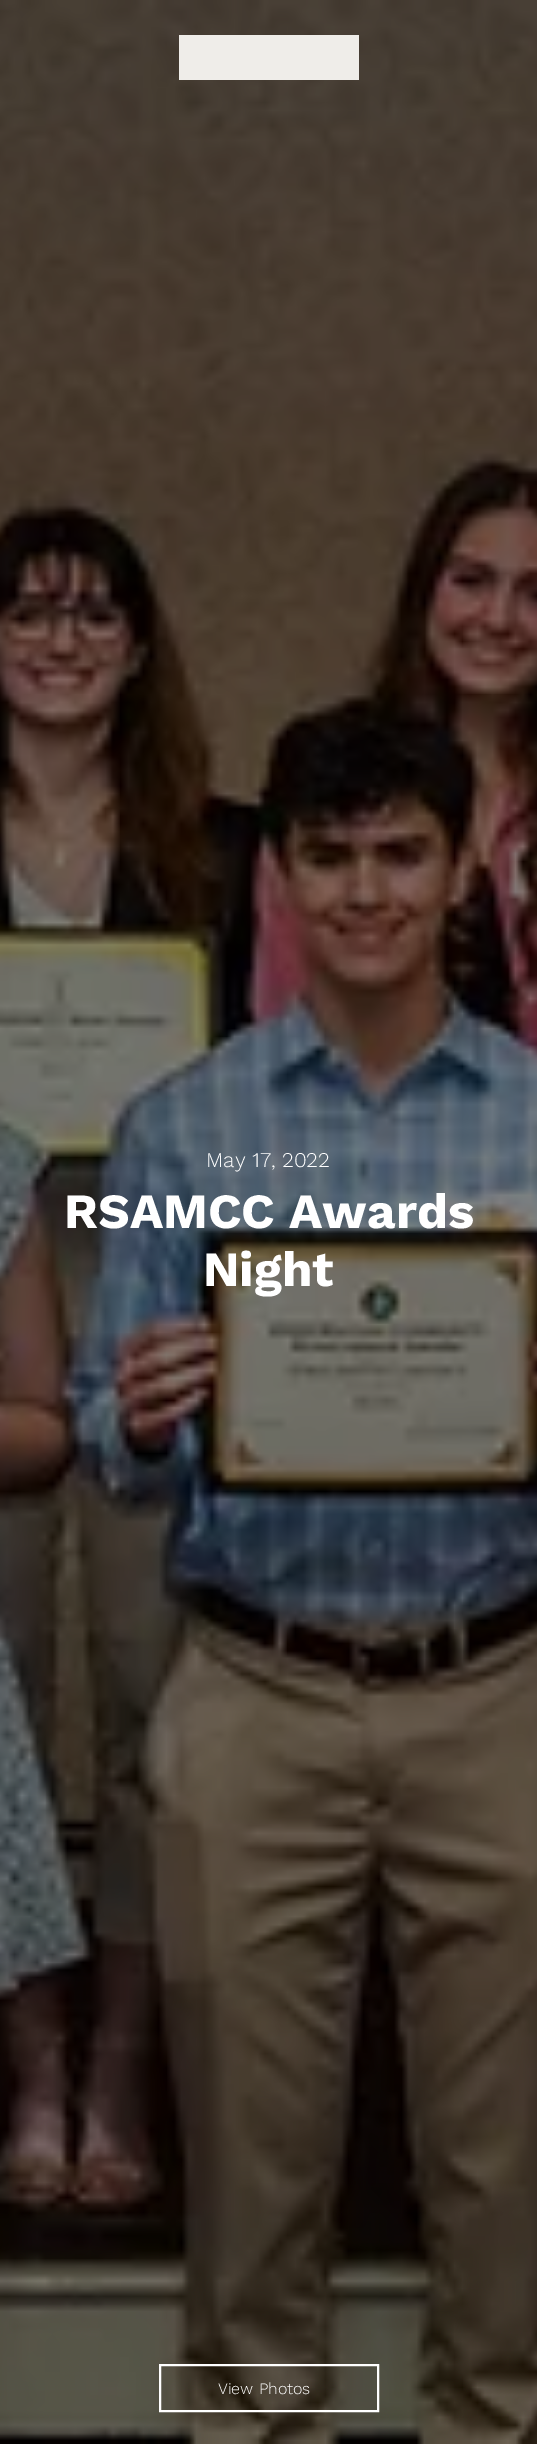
%!PS-Adobe-3.0
%%BoundingBox: 0 0 537 2444
%%LanguageLevel: 3
%%Pages: 1
%%EndComments
%%BeginProlog
/drawimage { 5 dict begin { /h /w /y /x /name } { exch def } forall
  gsave x y translate w h scale
  w h 8 [w 0 0 h 0 0] name (r) file false 3 colorimage grestore end } def
%%EndProlog
%%BeginSetup
<< /PageSize [537 2444] >> setpagedevice
%%EndSetup
%%Page: 1 1
0 2444 translate 1 -1 scale
4 setmiterlimit
0 setgray
0 0 537 2444 rectfill
(images/1.raw) 0 0 537 2444 drawimage
0.937 0.929 0.914 setrgbcolor
179 35 180 45 rectfill
1 setgray
2 setlinewidth
160 2365 218 46 rectstroke
/WorkSans-Light [21 0 0 -21 0 0] selectfont
206 1167 moveto (May 17, 2022) show
/WorkSans-Bold [49.25 0 0 -49.25 0 0] selectfont
64 1228 moveto (RSAMCC Awards) show
203 1286 moveto (Night) show
/WorkSans-Light [16 0 0 -16 0 0] selectfont
218 2394 moveto (View Photos) show
showpage
%%EOF
